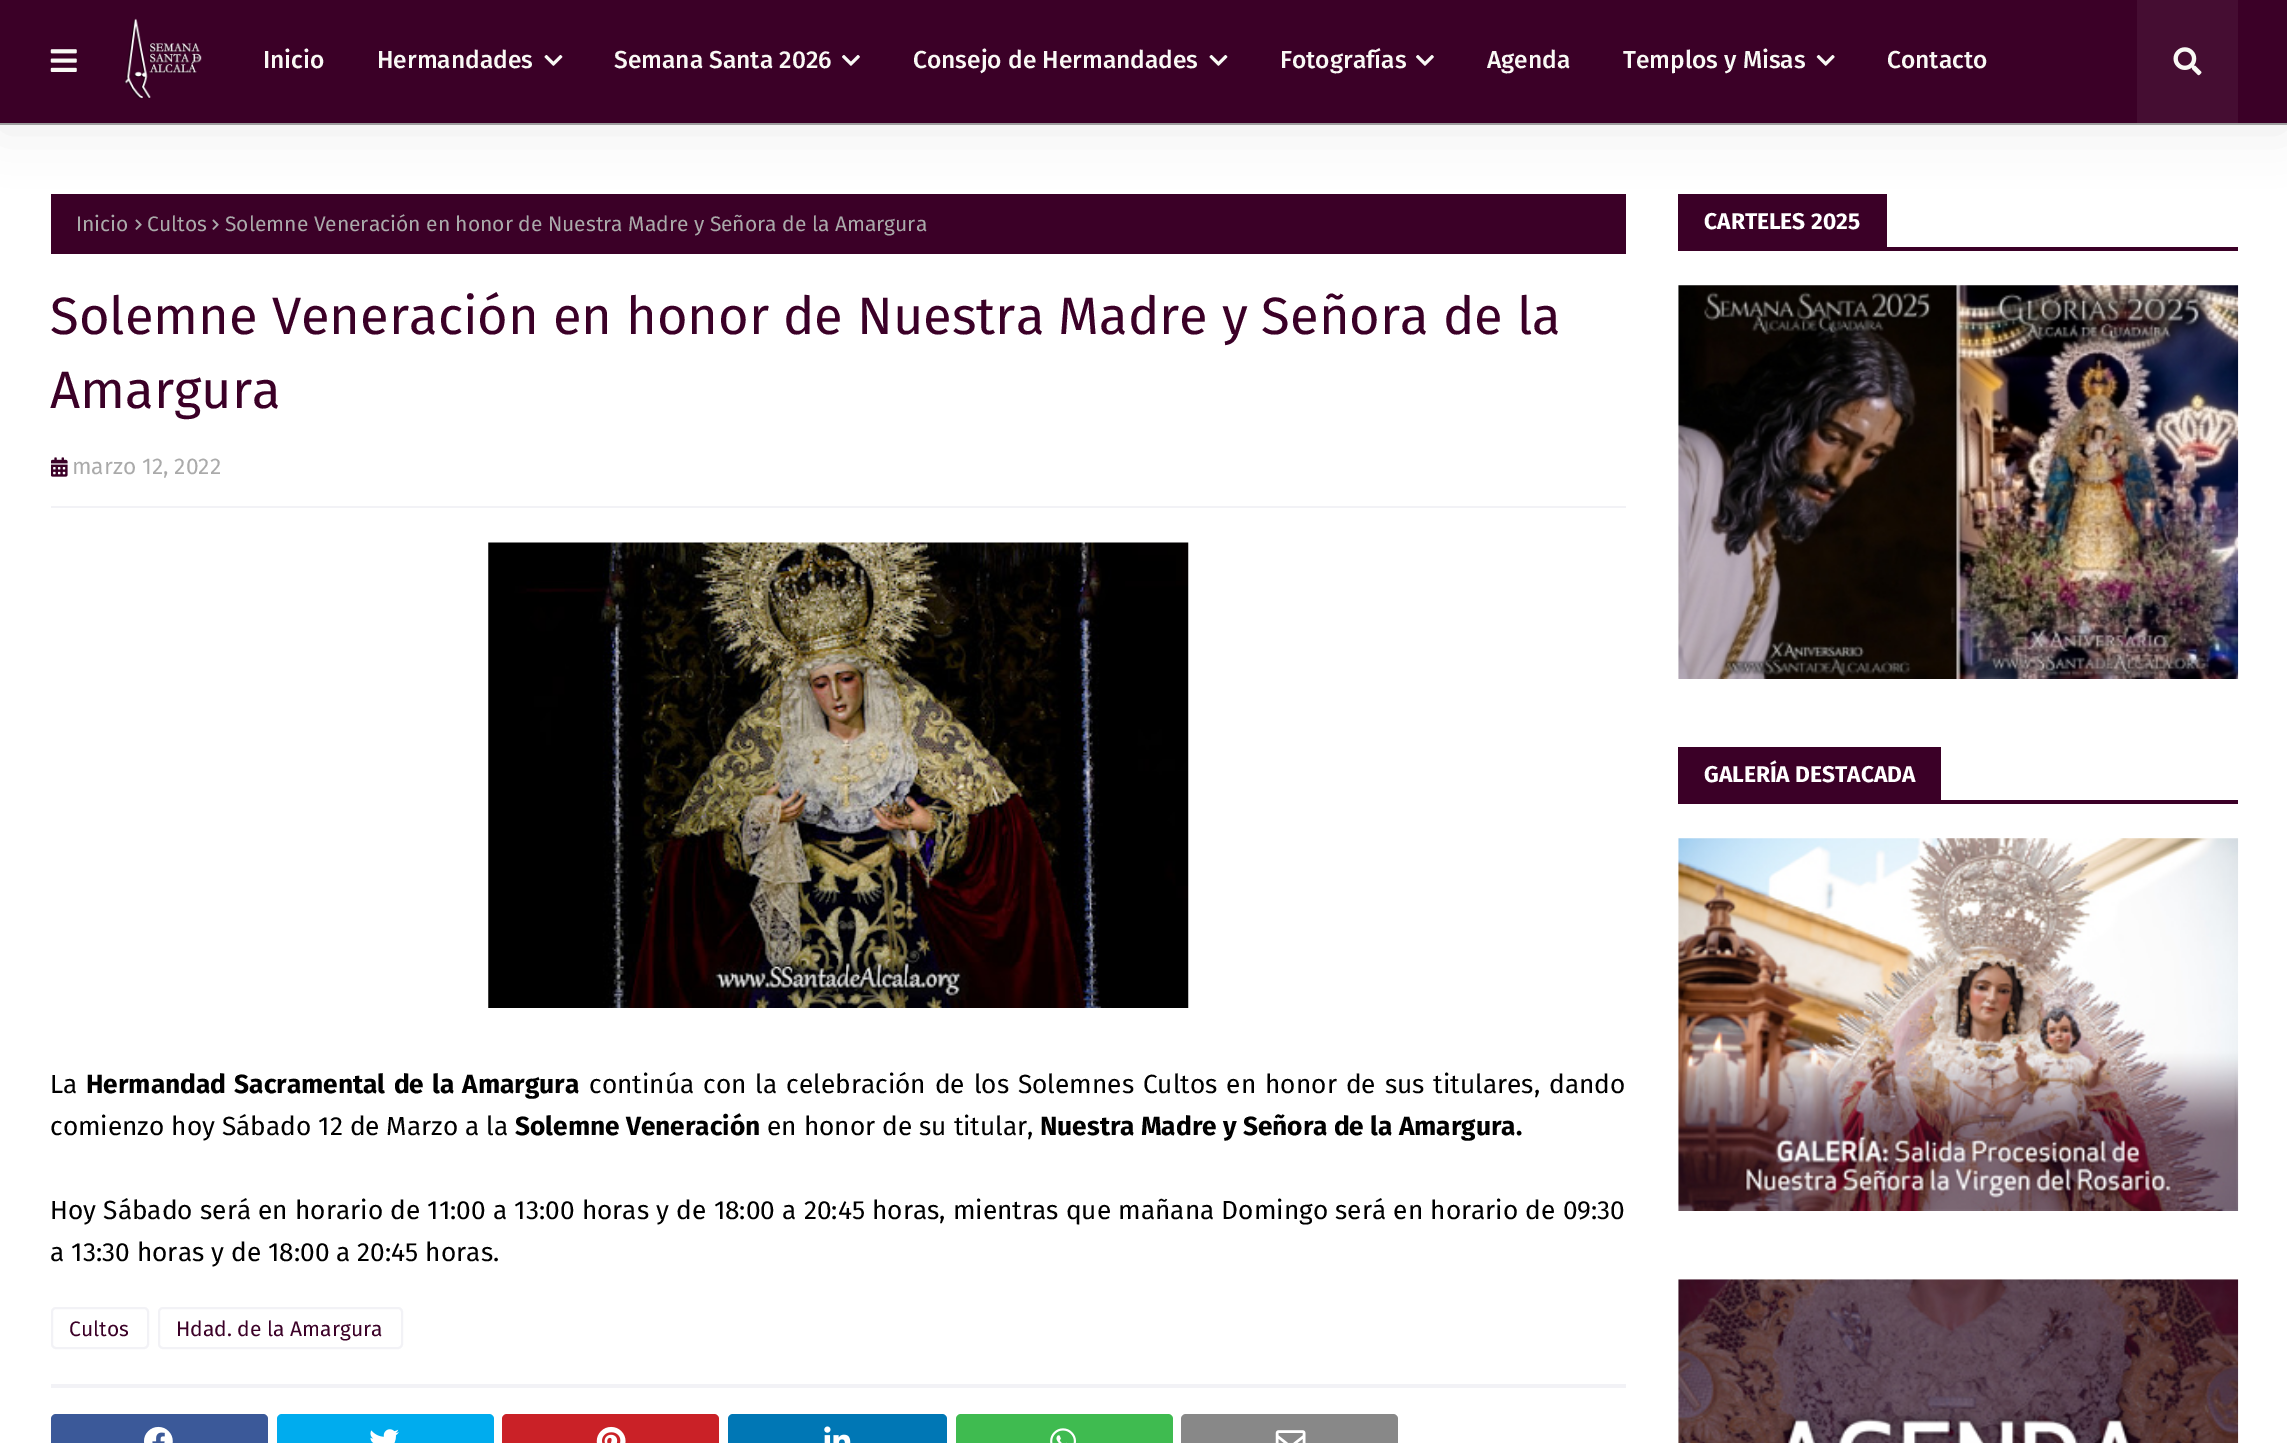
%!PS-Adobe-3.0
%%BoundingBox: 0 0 2287 1443
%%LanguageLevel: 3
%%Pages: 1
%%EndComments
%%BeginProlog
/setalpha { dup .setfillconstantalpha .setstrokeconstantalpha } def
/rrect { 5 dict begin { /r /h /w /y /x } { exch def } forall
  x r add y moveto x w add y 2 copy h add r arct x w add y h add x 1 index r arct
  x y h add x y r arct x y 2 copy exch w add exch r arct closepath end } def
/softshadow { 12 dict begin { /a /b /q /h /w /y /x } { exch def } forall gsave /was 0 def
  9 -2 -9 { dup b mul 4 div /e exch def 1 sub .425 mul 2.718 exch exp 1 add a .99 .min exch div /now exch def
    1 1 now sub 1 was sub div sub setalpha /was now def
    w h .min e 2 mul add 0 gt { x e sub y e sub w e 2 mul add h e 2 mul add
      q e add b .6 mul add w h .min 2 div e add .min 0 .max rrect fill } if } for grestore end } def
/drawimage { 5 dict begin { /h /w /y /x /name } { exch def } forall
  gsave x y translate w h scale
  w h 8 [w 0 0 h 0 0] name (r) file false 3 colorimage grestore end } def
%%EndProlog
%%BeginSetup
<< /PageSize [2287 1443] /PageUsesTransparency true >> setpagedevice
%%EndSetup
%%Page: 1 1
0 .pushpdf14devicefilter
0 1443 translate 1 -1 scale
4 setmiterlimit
1 setgray
0 0 2287 1443 rectfill
0.651 setgray
0 123 2287 2 rectfill
0.231 0 0.153 setrgbcolor
51 194 1575 60 rectfill
1678 194 209 53 rectfill
0 setgray
0 7 2287 123 0 26 0.07 softshadow
0.231 0 0.153 setrgbcolor
0 0 2287 123 rectfill
(images/1.raw) 50 49 27 23 drawimage
(images/2.raw) 124 18 78 81 drawimage
(images/3.raw) 544 55 19 11 drawimage
(images/4.raw) 842 55 18 11 drawimage
(images/3.raw) 1209 55 19 11 drawimage
(images/4.raw) 1416 55 18 11 drawimage
(images/5.raw) 1816 55 19 11 drawimage
0.271 0.051 0.196 setrgbcolor
2137 0 101 123 rectfill
(images/6.raw) 2173 47 29 29 drawimage
(images/7.raw) 135 219 7 11 drawimage
(images/7.raw) 212 219 7 11 drawimage
(images/8.raw) 51 457 17 20 drawimage
0.949 0.949 0.965 setrgbcolor
51 506 1575 2 rectfill
(images/9.raw) 488 542 701 466 drawimage
2 setlinewidth
52 1308 96 40 4 rrect stroke
159 1308 243 40 4 rrect stroke
51 1384 1575 4 rectfill
0.231 0.349 0.6 setrgbcolor
51 1414 217 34 5 rrect fill
(images/10.raw) 144 1426 29 17 drawimage
0 0.675 0.933 setrgbcolor
277 1414 217 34 5 rrect fill
(images/11.raw) 370 1429 29 14 drawimage
0.792 0.129 0.153 setrgbcolor
502 1414 217 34 5 rrect fill
(images/12.raw) 596 1426 30 17 drawimage
0 0.467 0.71 setrgbcolor
728 1414 219 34 5 rrect fill
(images/13.raw) 824 1426 27 17 drawimage
0.247 0.733 0.314 setrgbcolor
956 1414 217 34 5 rrect fill
(images/14.raw) 1050 1428 26 15 drawimage
0.533 setgray
1181 1414 217 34 5 rrect fill
(images/15.raw) 1275 1430 31 13 drawimage
0.231 0 0.153 setrgbcolor
1678 247 560 4 rectfill
(images/16.raw) 1678 285 561 394 drawimage
1678 800 560 4 rectfill
1678 747 263 53 rectfill
(images/17.raw) 1678 838 561 373 drawimage
(images/18.raw) 1678 1279 561 164 drawimage
/FiraSans-Medium [24.5 0 0 -24.5 0 0] selectfont
0.976 0.976 0.961 setrgbcolor
263 68 moveto (Inicio) show
377 68 moveto (Hermandades) show
614 68 moveto (Semana Santa 2026) show
913 68 moveto (Consejo de Hermandades) show
1280 68 moveto (Fotografías) show
1487 68 moveto (Agenda) show
1623 68 moveto (Templos y Misas) show
1887 68 moveto (Contacto) show
/FiraSans-Regular [21 0 0 -21 0 0] selectfont
0.667 setgray
76 231 moveto (Inicio) show
147 231 moveto (Cultos) show
225 231 moveto (Solemne Veneración en honor de Nuestra Madre y Señora de la Amargura) show
/FiraSans-Regular [52.5 0 0 -52.5 0 0] selectfont
0.231 0 0.153 setrgbcolor
50 334 moveto (Solemne Veneración en honor de Nuestra Madre y Señora de la) show
50 408 moveto (Amargura) show
/FiraSans-Regular [22.75 0 0 -22.75 0 0] selectfont
0.667 setgray
72 474 moveto (marzo 12, 2022) show
/FiraSans-Regular [26.25 0 0 -26.25 0 0] selectfont
0 setgray
50 1093 moveto (La) show
/FiraSans-Bold [26.25 0 0 -26.25 0 0] selectfont
86 1093 moveto 2 0 32 (Hermandad Sacramental de la Amargura) widthshow
/FiraSans-Regular [26.25 0 0 -26.25 0 0] selectfont
589 1093 moveto 2 0 32 (continúa con la celebración de los Solemnes Cultos en honor de sus titulares, dando) widthshow
50 1135 moveto (comienzo hoy Sábado 12 de Marzo a la) show
/FiraSans-Bold [26.25 0 0 -26.25 0 0] selectfont
515 1135 moveto (Solemne Veneración) show
/FiraSans-Regular [26.25 0 0 -26.25 0 0] selectfont
767 1135 moveto (en honor de su titular,) show
/FiraSans-Bold [26.25 0 0 -26.25 0 0] selectfont
1040 1135 moveto (Nuestra Madre y Señora de la Amargura.) show
/FiraSans-Regular [26.25 0 0 -26.25 0 0] selectfont
50 1219 moveto 0.25 0 32 (Hoy Sábado será en horario de 11:00 a 13:00 horas y de 18:00 a 20:45 horas, mientras que mañana Domingo será en horario de 09:30) widthshow
50 1261 moveto (a 13:30 horas y de 18:00 a 20:45 horas.) show
/FiraSans-Regular [21 0 0 -21 0 0] selectfont
0.231 0 0.153 setrgbcolor
69 1336 moveto (Cultos) show
176 1336 moveto (Hdad. de la Amargura) show
/FiraSans-Bold [22.75 0 0 -22.75 0 0] selectfont
1 setgray
1704 229 moveto (CARTELES 2025) show
1704 782 moveto (GALERÍA DESTACADA) show
.poppdf14devicefilter showpage
%%EOF
